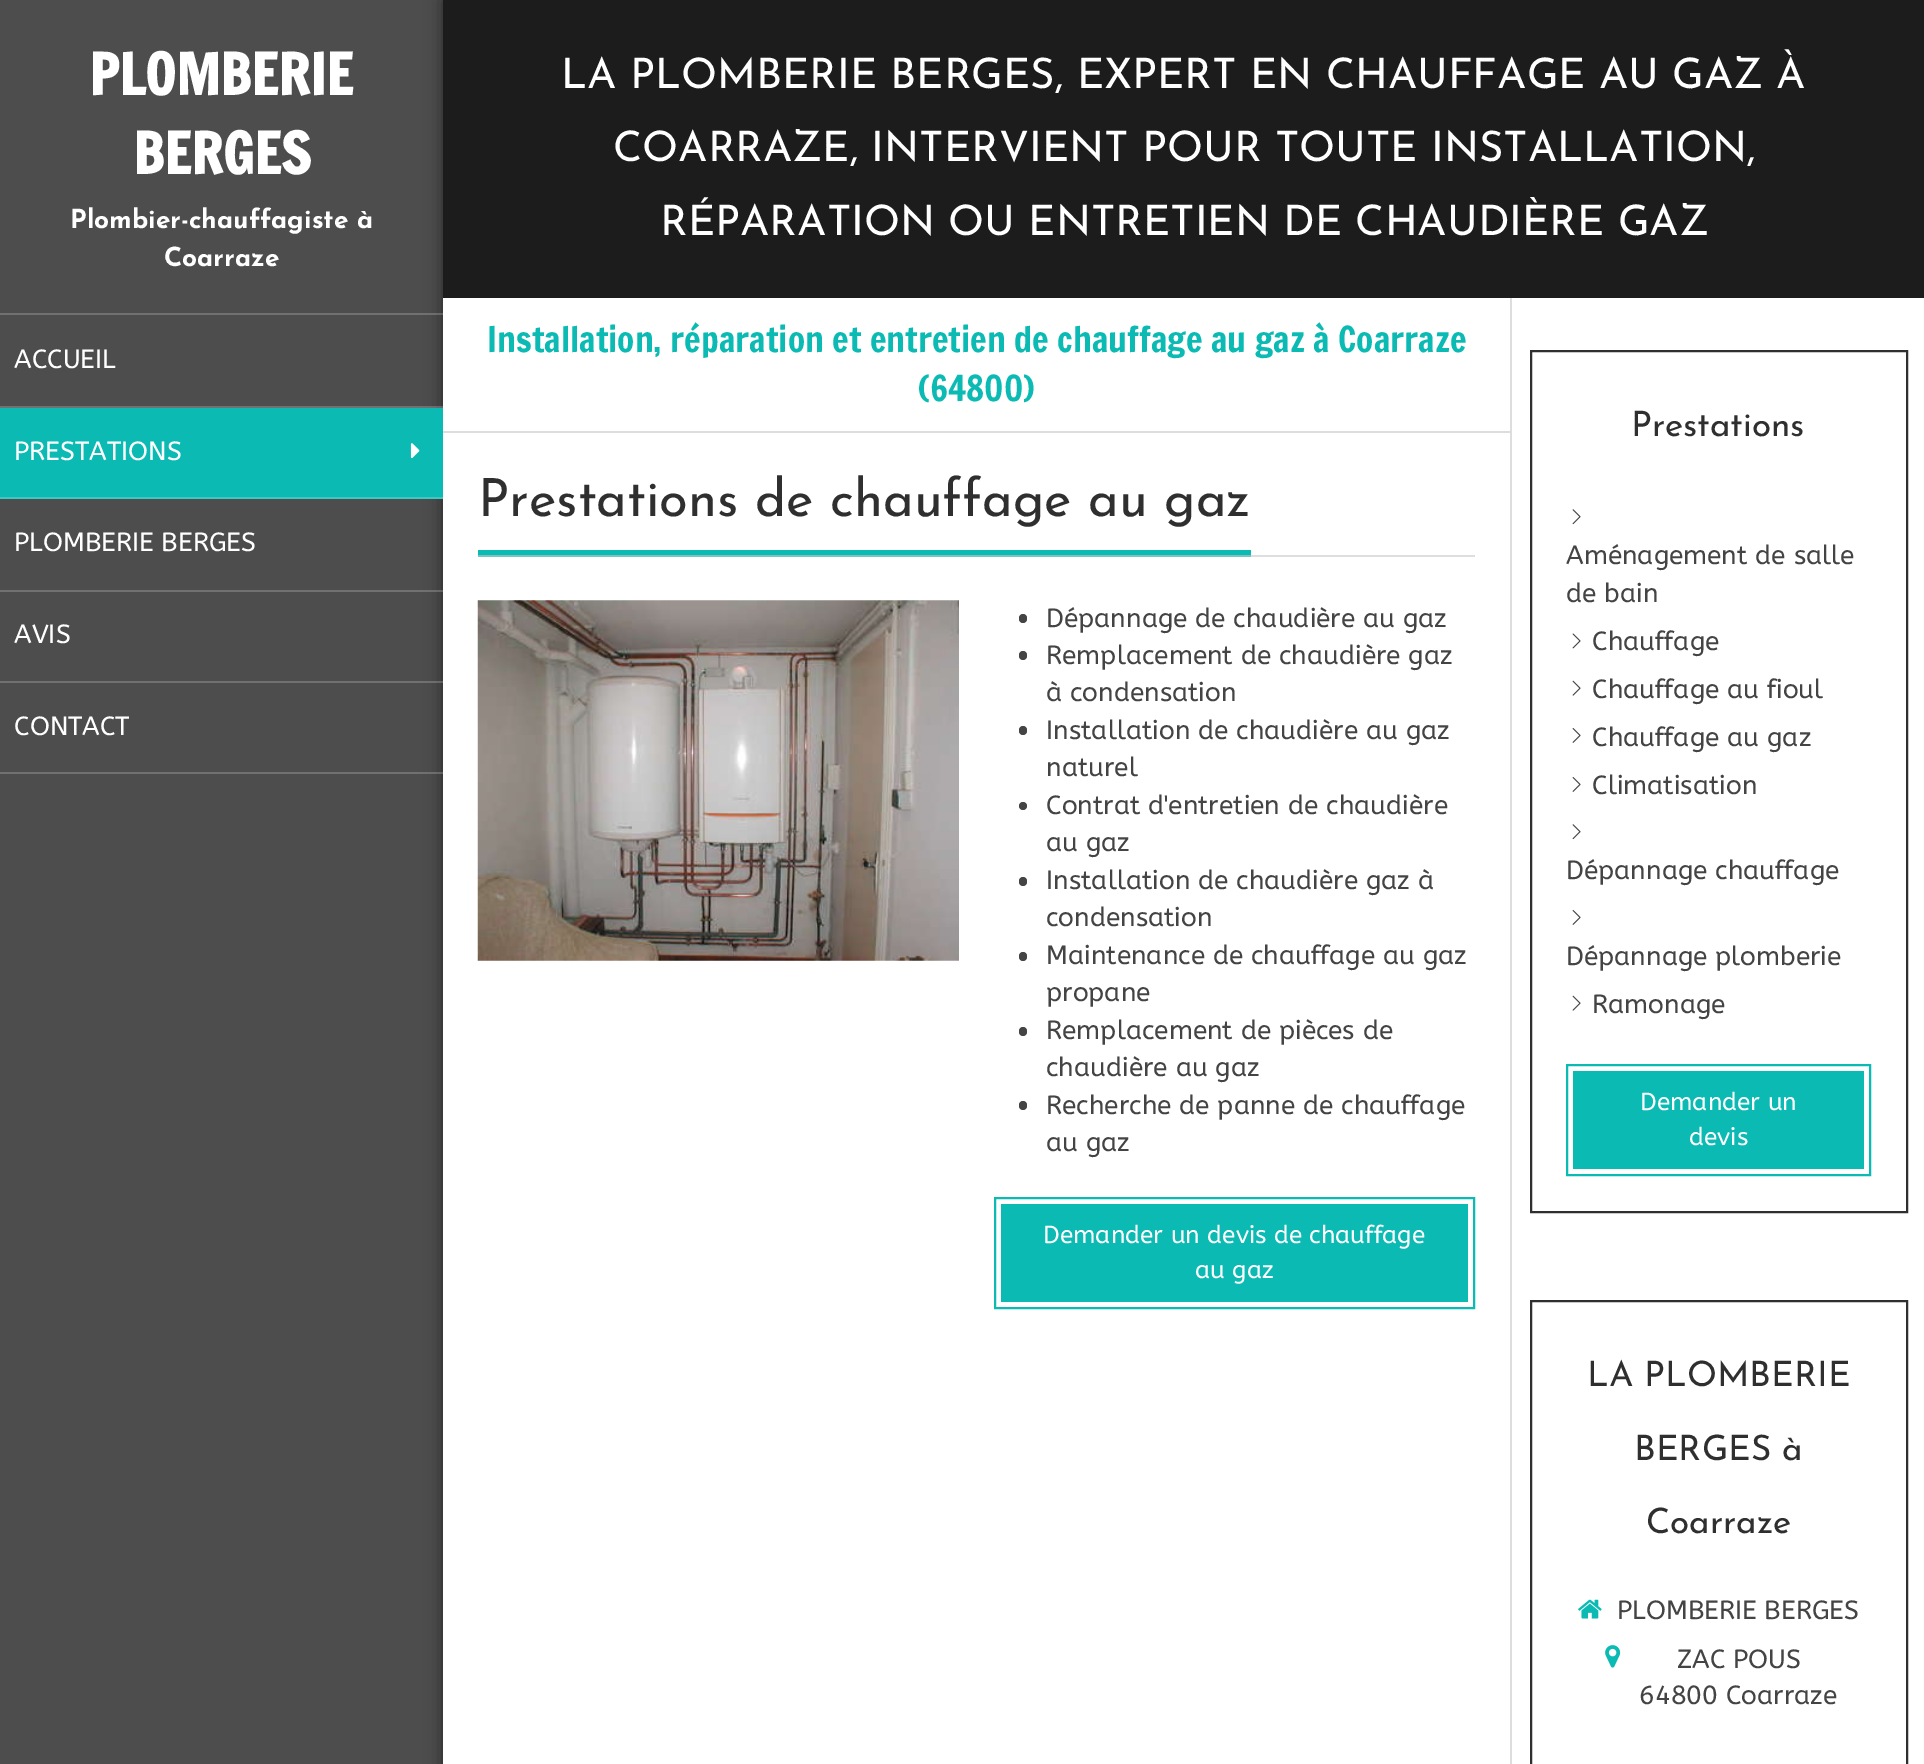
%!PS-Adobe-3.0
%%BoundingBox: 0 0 1924 1764
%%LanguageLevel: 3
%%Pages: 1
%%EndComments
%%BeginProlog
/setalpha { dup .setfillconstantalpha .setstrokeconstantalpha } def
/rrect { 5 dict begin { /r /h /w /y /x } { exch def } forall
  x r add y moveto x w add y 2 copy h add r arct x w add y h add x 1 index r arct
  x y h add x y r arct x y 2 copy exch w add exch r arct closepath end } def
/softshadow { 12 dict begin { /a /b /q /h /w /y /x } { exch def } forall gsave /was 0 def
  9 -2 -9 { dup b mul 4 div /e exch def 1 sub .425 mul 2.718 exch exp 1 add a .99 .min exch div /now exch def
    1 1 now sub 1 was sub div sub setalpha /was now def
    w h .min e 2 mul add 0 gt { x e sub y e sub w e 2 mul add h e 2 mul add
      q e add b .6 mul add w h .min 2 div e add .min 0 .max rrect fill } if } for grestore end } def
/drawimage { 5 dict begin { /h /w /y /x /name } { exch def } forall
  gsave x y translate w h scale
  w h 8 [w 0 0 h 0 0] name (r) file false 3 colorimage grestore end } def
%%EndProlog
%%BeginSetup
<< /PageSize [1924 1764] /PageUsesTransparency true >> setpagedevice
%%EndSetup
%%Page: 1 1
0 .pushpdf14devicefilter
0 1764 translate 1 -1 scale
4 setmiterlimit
0.302 setgray
0 0 1924 1764 rectfill
0 setgray
443 0 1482 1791 0 9 0.5 softshadow
0.2 setalpha
1 setgray
0 313 443 2 rectfill
0 406 443 2 rectfill
1 setalpha
0.047 0.729 0.706 setrgbcolor
0 408 443 89 rectfill
0.239 0.784 0.765 setrgbcolor
0 497 443 2 rectfill
(images/1.raw) 410 443 10 16 drawimage
0.2 setalpha
1 setgray
0 590 443 2 rectfill
0 681 443 2 rectfill
0 772 443 2 rectfill
1 setalpha
0.11 setgray
443 0 1481 298 rectfill
1 setgray
443 298 1067 1466 rectfill
0.871 setgray
1251 555 224 2 rectfill
0.867 setgray
443 431 1067 2 rectfill
0.047 0.729 0.706 setrgbcolor
478 550 773 5 rectfill
0.49 0.761 0.753 setrgbcolor
478 555 773 2 rectfill
(images/2.raw) 477 600 482 361 drawimage
0.267 setgray
1019 614 8 9 4 rrect fill
1019 651 8 9 4 rrect fill
1019 726 8 9 4 rrect fill
newpath 1023 806 4 0 360 arc closepath fill
1019 877 8 9 4 rrect fill
1019 952 8 9 4 rrect fill
1019 1027 8 9 4 rrect fill
1019 1101 8 9 4 rrect fill
0.047 0.729 0.706 setrgbcolor
2 setlinewidth
995 1198 479 110 rectstroke
1001 1204 467 98 rectfill
1 setgray
1512 298 412 1466 rectfill
0.867 setgray
1510 298 2 1466 rectfill
0.184 setgray
1531 351 376 861 rectstroke
(images/3.raw) 1572 509 9 16 drawimage
(images/4.raw) 1572 633 9 16 drawimage
(images/5.raw) 1572 680 9 16 drawimage
(images/6.raw) 1572 728 9 15 drawimage
(images/6.raw) 1572 777 9 15 drawimage
(images/3.raw) 1572 824 9 16 drawimage
(images/6.raw) 1572 910 9 15 drawimage
(images/5.raw) 1572 995 9 16 drawimage
0.047 0.729 0.706 setrgbcolor
1567 1065 303 110 rectstroke
1573 1071 291 98 rectfill
0.184 setgray
1531 1301 376 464 rectstroke
(images/7.raw) 1578 1599 24 20 drawimage
(images/8.raw) 1605 1645 16 23 drawimage
/FrancoisOne-Bold [56 0 0 -56 0 0] selectfont
1 setgray
89 95 moveto (PLOMBERIE) show
133 174 moveto (BERGES) show
/JosefinSans-Bold [26.25 0 0 -26.25 0 0] selectfont
70 228 moveto (Plombier-chauffagiste à) show
164 266 moveto (Coarraze) show
/ABeeZee-Regular [26.25 0 0 -26.25 0 0] selectfont
14 368 moveto (ACCUEIL) show
14 460 moveto (PRESTATIONS) show
14 551 moveto (PLOMBERIE BERGES) show
14 643 moveto (AVIS) show
14 735 moveto (CONTACT) show
/JosefinSans-Regular [42 0 0 -42 0 0] selectfont
561 88 moveto (LA PLOMBERIE BERGES, EXPERT EN CHAUFFAGE AU GAZ À) show
613 161 moveto (COARRAZE, INTERVIENT POUR TOUTE INSTALLATION,) show
660 235 moveto (RÉPARATION OU ENTRETIEN DE CHAUDIÈRE GAZ) show
/FrancoisOne-Regular [35 0 0 -35 0 0] selectfont
0.047 0.729 0.706 setrgbcolor
487 352 moveto (Installation, réparation et entretien de chauffage au gaz à Coarraze) show
918 401 moveto (\(64800\)) show
/JosefinSans-Regular [52.5 0 0 -52.5 0 0] selectfont
0.184 setgray
478 516 moveto (Prestations de chauffage au gaz) show
/ABeeZee-Regular [26.25 0 0 -26.25 0 0] selectfont
0.267 setgray
1046 627 moveto (Dépannage de chaudière au gaz) show
1046 664 moveto (Remplacement de chaudière gaz) show
1046 701 moveto (à condensation) show
1046 739 moveto (Installation de chaudière au gaz) show
1046 776 moveto (naturel) show
1046 814 moveto (Contrat d'entretien de chaudière) show
1046 851 moveto (au gaz) show
1046 889 moveto (Installation de chaudière gaz à) show
1046 926 moveto (condensation) show
1046 964 moveto (Maintenance de chauffage au gaz) show
1046 1001 moveto (propane) show
1046 1039 moveto (Remplacement de pièces de) show
1046 1076 moveto (chaudière au gaz) show
1046 1114 moveto (Recherche de panne de chauffage) show
1046 1151 moveto (au gaz) show
/ABeeZee-Regular [24.5 0 0 -24.5 0 0] selectfont
1 setgray
1043 1243 moveto (Demander un devis de chauffage) show
1195 1278 moveto (au gaz) show
/JosefinSans-Regular [35 0 0 -35 0 0] selectfont
0.184 setgray
1631 436 moveto (Prestations) show
/ABeeZee-Regular [26.25 0 0 -26.25 0 0] selectfont
0.267 setgray
1566 564 moveto (Aménagement de salle) show
1566 602 moveto (de bain) show
1592 650 moveto (Chauffage) show
1592 698 moveto (Chauffage au fioul) show
1592 746 moveto (Chauffage au gaz) show
1592 794 moveto (Climatisation) show
1566 879 moveto (Dépannage chauffage) show
1566 965 moveto (Dépannage plomberie) show
1592 1013 moveto (Ramonage) show
/ABeeZee-Regular [24.5 0 0 -24.5 0 0] selectfont
1 setgray
1640 1110 moveto (Demander un) show
1689 1145 moveto (devis) show
/JosefinSans-Regular [35 0 0 -35 0 0] selectfont
0.184 setgray
1587 1386 moveto (LA PLOMBERIE) show
1634 1460 moveto (BERGES à) show
1646 1533 moveto (Coarraze) show
/ABeeZee-Regular [26.25 0 0 -26.25 0 0] selectfont
0.267 setgray
1617 1619 moveto (PLOMBERIE BERGES) show
1677 1668 moveto (ZAC POUS) show
1639 1704 moveto (64800 Coarraze) show
.poppdf14devicefilter showpage
%%EOF
